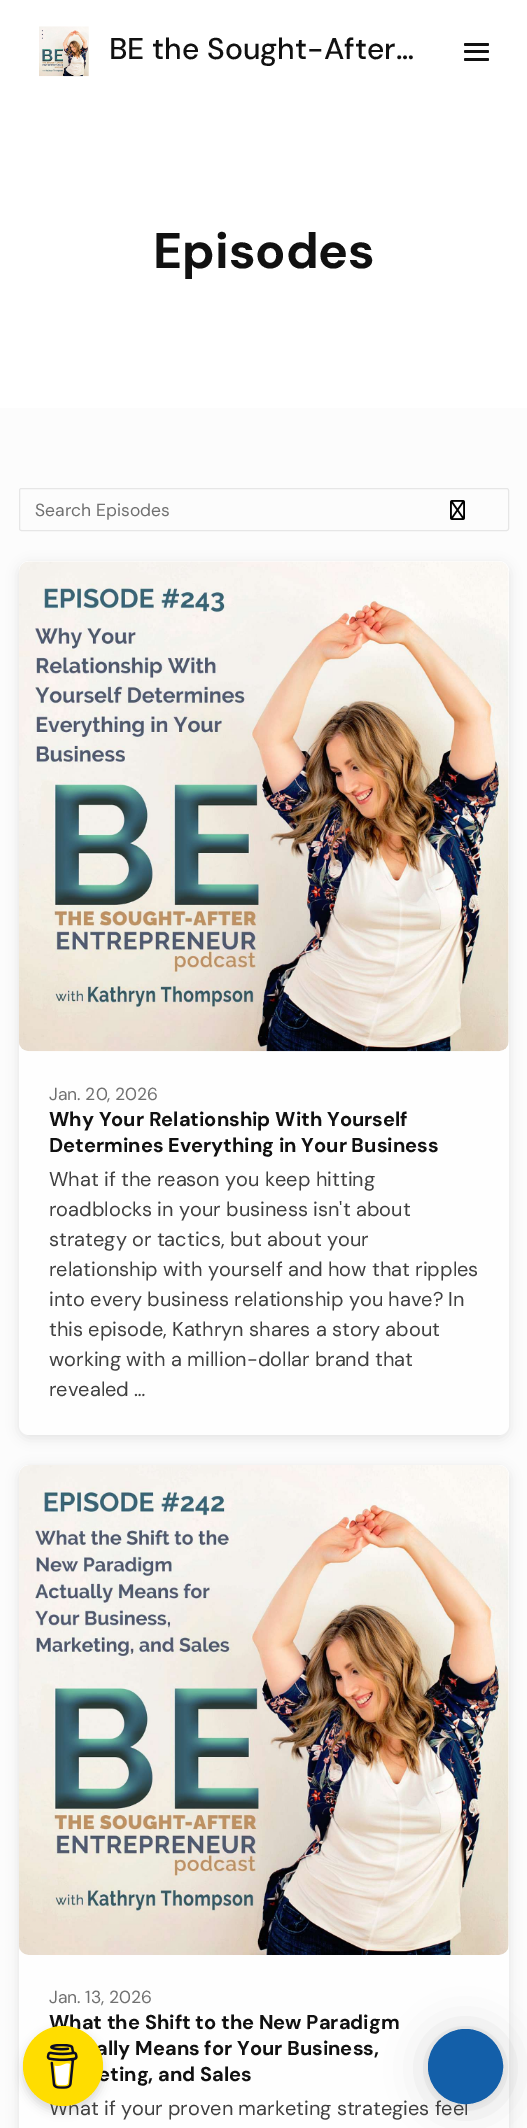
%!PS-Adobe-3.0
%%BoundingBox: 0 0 527 2128
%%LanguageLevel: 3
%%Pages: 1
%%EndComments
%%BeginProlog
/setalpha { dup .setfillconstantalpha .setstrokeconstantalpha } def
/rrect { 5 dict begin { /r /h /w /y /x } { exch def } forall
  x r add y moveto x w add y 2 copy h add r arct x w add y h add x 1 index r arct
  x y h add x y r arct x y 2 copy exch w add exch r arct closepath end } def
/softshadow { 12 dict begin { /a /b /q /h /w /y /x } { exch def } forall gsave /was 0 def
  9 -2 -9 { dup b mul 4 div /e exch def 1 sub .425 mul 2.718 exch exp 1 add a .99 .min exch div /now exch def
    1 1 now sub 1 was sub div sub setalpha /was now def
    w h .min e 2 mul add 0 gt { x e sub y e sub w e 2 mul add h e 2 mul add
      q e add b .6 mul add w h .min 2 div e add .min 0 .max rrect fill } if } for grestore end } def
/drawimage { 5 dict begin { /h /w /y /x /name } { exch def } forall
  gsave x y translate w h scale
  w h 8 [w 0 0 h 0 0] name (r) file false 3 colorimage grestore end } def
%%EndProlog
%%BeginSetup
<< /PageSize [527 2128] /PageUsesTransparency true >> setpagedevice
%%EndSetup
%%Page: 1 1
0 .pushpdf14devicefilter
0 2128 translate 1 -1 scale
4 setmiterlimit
0.988 setgray
0 0 527 2128 rectfill
1 setgray
0 0 527 408 rectfill
(images/1.raw) 39 26 50 51 drawimage
0.067 setgray
464 43 25 3 1.5 rrect fill
464 50 25 3 1.5 rrect fill
464 58 25 3 1.5 rrect fill
0.902 setgray
19.5 488.5 489 42 2 rrect stroke
(images/2.raw) 450 500 15 20 drawimage
0 setgray
19 564 490 874 10 6 0.1 softshadow
0.996 setgray
19 561 490 874 10 rrect fill
(images/3.raw) 19 561 490 491 drawimage
0 setgray
19 1468 490 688 10 6 0.1 softshadow
0.996 setgray
19 1465 490 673 10 rrect fill
(images/4.raw) 19 1465 490 490 drawimage
0 setgray
23 2031 80 80 40 5 0.15 softshadow
428 2031 75 75 37.5 20 0.16 softshadow
428 2030 75 75 37.5 4 0.06 softshadow
/DMSans-Medium [30 0 0 -30 0 0] selectfont
0.067 setgray
109 59 moveto (BE the Sought-After…) show
/DMSans-Bold [50 0 0 -50 0 0] selectfont
153 268 moveto (Episodes) show
/DMSans-Regular [17.5 0 0 -17.5 0 0] selectfont
0.439 setgray
35 516 moveto (Search Episodes) show
49 1100 moveto (Jan. 20, 2026) show
/DMSans-Bold [20 0 0 -20 0 0] selectfont
0.067 setgray
49 1126 moveto (Why Your Relationship With Yourself) show
49 1152 moveto (Determines Everything in Your Business) show
/DMSans-Regular [20 0 0 -20 0 0] selectfont
0.251 setgray
49 1186 moveto (What if the reason you keep hitting) show
49 1216 moveto (roadblocks in your business isn't about) show
49 1246 moveto (strategy or tactics, but about your) show
49 1276 moveto (relationship with yourself and how that ripples) show
49 1306 moveto (into every business relationship you have? In) show
49 1336 moveto (this episode, Kathryn shares a story about) show
49 1366 moveto (working with a million-dollar brand that) show
49 1396 moveto (revealed …) show
/DMSans-Regular [17.5 0 0 -17.5 0 0] selectfont
0.439 setgray
49 2003 moveto (Jan. 13, 2026) show
/DMSans-Bold [20 0 0 -20 0 0] selectfont
0.067 setgray
49 2029 moveto (What the Shift to the New Paradigm) show
96 2055 moveto (ally Means for Your Business,) show
98 2081 moveto (eting, and Sales) show
/DMSans-Regular [20 0 0 -20 0 0] selectfont
0.251 setgray
49 2115 moveto (What if your proven marketing strategies feel) show
1 0.867 0 setrgbcolor
newpath 63 2066 40 0 360 arc closepath fill
(images/5.raw) 46 2044 32 45 drawimage
0.075 0.373 0.663 setrgbcolor
newpath 465.5 2066.5 37 0 360 arc closepath gsave fill grestore
stroke
.poppdf14devicefilter showpage
%%EOF
